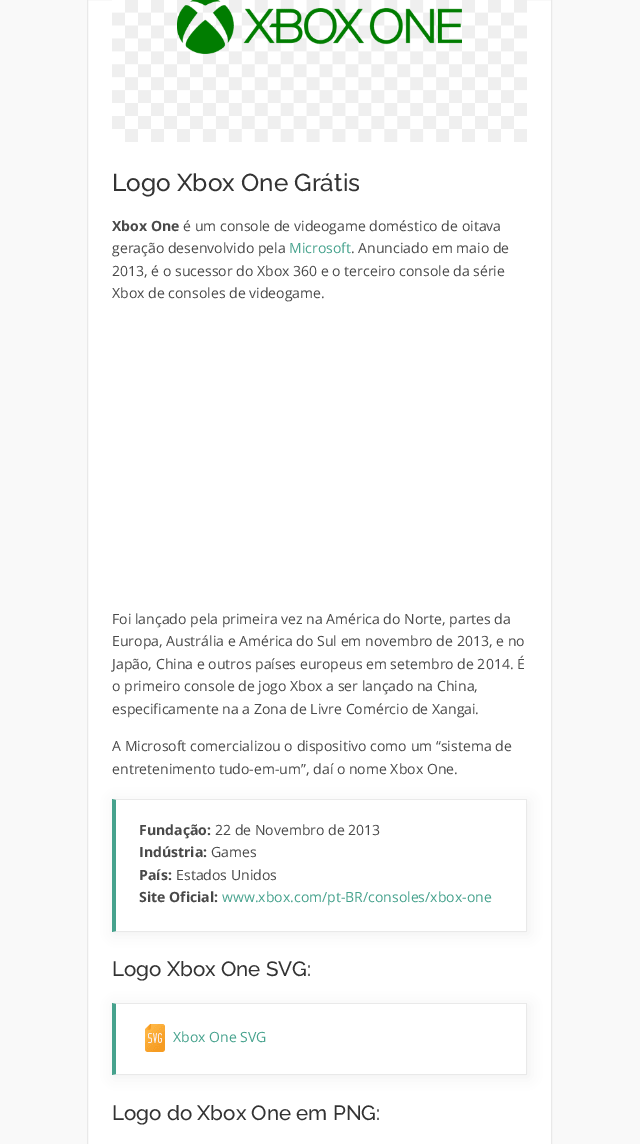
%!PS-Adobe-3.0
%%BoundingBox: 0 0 640 1144
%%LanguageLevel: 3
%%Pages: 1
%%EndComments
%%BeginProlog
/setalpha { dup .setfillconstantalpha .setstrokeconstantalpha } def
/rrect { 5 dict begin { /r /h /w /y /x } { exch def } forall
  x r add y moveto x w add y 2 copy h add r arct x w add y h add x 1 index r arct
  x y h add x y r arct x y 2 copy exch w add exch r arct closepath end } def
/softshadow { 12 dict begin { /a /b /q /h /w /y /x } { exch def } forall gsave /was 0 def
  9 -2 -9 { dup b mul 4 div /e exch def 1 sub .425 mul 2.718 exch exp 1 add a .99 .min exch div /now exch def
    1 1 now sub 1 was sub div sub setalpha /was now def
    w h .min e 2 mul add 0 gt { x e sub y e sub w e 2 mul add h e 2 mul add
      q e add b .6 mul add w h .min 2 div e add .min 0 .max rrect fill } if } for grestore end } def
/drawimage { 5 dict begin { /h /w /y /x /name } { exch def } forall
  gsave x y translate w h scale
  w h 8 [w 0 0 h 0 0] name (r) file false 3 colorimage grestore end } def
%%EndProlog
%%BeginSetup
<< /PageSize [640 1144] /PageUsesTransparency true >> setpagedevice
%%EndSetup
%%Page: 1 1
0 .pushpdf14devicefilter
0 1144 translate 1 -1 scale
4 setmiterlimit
0.976 setgray
0 0 640 1144 rectfill
1 setgray
newpath 87.5 -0.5 moveto 551.5 -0.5 lineto 551.5 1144.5 lineto 87.5 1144.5 lineto closepath gsave fill grestore
0.914 setgray
stroke
(images/1.raw) 112 0 415 142 drawimage
gsave
newpath 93 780 moveto 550 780 lineto 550 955 lineto 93 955 lineto closepath 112 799 moveto 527 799 lineto 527 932 lineto 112 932 lineto closepath eoclip newpath
0.933 setgray
114 801 415 133 0 6.5 1 softshadow
grestore
newpath 112 799 moveto 527 799 lineto 526 800 lineto 116 800 lineto closepath fill
526 799 1 133 rectfill
newpath 527 932 moveto 112 932 lineto 116 931 lineto 526 931 lineto closepath fill
0.275 0.635 0.553 setrgbcolor
newpath 112 932 moveto 112 799 lineto 116 800 lineto 116 931 lineto closepath fill
gsave
newpath 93 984 moveto 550 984 lineto 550 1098 lineto 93 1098 lineto closepath 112 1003 moveto 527 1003 lineto 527 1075 lineto 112 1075 lineto closepath eoclip newpath
0.933 setgray
114 1005 415 72 0 6.5 1 softshadow
grestore
0.914 setgray
newpath 112 1003 moveto 527 1003 lineto 526 1004 lineto 116 1004 lineto closepath fill
526 1003 1 72 rectfill
newpath 527 1075 moveto 112 1075 lineto 116 1074 lineto 526 1074 lineto closepath fill
0.275 0.635 0.553 setrgbcolor
newpath 112 1075 moveto 112 1003 lineto 116 1004 lineto 116 1074 lineto closepath fill
(images/2.raw) 145 1024 20 28 drawimage
/Raleway-Medium [24.4 0 0 -24.4 0 0] selectfont
0.2 setgray
112 191 moveto (Logo Xbox One Grátis) show
/OpenSans-Bold [14.05 0 0 -14.05 0 0] selectfont
0.286 setgray
112 231 moveto (Xbox One) show
/OpenSans-Regular [14.05 0 0 -14.05 0 0] selectfont
183 231 moveto (é um console de videogame doméstico de oitava) show
112 253 moveto (geração desenvolvido pela) show
0.275 0.635 0.553 setrgbcolor
289 253 moveto (Microsoft) show
0.286 setgray
351 253 moveto (. Anunciado em maio de) show
112 276 moveto (2013, é o sucessor do Xbox 360 e o terceiro console da série) show
112 298 moveto (Xbox de consoles de videogame.) show
112 624 moveto (Foi lançado pela primeira vez na América do Norte, partes da) show
112 646 moveto (Europa, Austrália e América do Sul em novembro de 2013, e no) show
112 669 moveto (Japão, China e outros países europeus em setembro de 2014. É) show
112 691 moveto (o primeiro console de jogo Xbox a ser lançado na China,) show
112 714 moveto (especificamente na a Zona de Livre Comércio de Xangai.) show
112 751 moveto (A Microsoft comercializou o dispositivo como um “sistema de) show
112 774 moveto (entretenimento tudo-em-um”, daí o nome Xbox One.) show
/OpenSans-Bold [14.05 0 0 -14.05 0 0] selectfont
139 835 moveto (Fundação:) show
/OpenSans-Regular [14.05 0 0 -14.05 0 0] selectfont
215 835 moveto (22 de Novembro de 2013) show
/OpenSans-Bold [14.05 0 0 -14.05 0 0] selectfont
139 857 moveto (Indústria:) show
/OpenSans-Regular [14.05 0 0 -14.05 0 0] selectfont
211 857 moveto (Games) show
/OpenSans-Bold [14.05 0 0 -14.05 0 0] selectfont
139 880 moveto (País:) show
/OpenSans-Regular [14.05 0 0 -14.05 0 0] selectfont
176 880 moveto (Estados Unidos) show
/OpenSans-Bold [14.05 0 0 -14.05 0 0] selectfont
139 902 moveto (Site Oficial:) show
/OpenSans-Regular [14.05 0 0 -14.05 0 0] selectfont
0.275 0.635 0.553 setrgbcolor
222 902 moveto (www.xbox.com/pt-BR/consoles/xbox-one) show
/Raleway-Medium [20.6 0 0 -20.6 0 0] selectfont
0.2 setgray
112 976 moveto (Logo Xbox One SVG:) show
/OpenSans-Regular [14.05 0 0 -14.05 0 0] selectfont
0.275 0.635 0.553 setrgbcolor
173 1042 moveto (Xbox One SVG) show
/Raleway-Medium [20.6 0 0 -20.6 0 0] selectfont
0.2 setgray
112 1120 moveto (Logo do Xbox One em PNG:) show
.poppdf14devicefilter showpage
%%EOF
